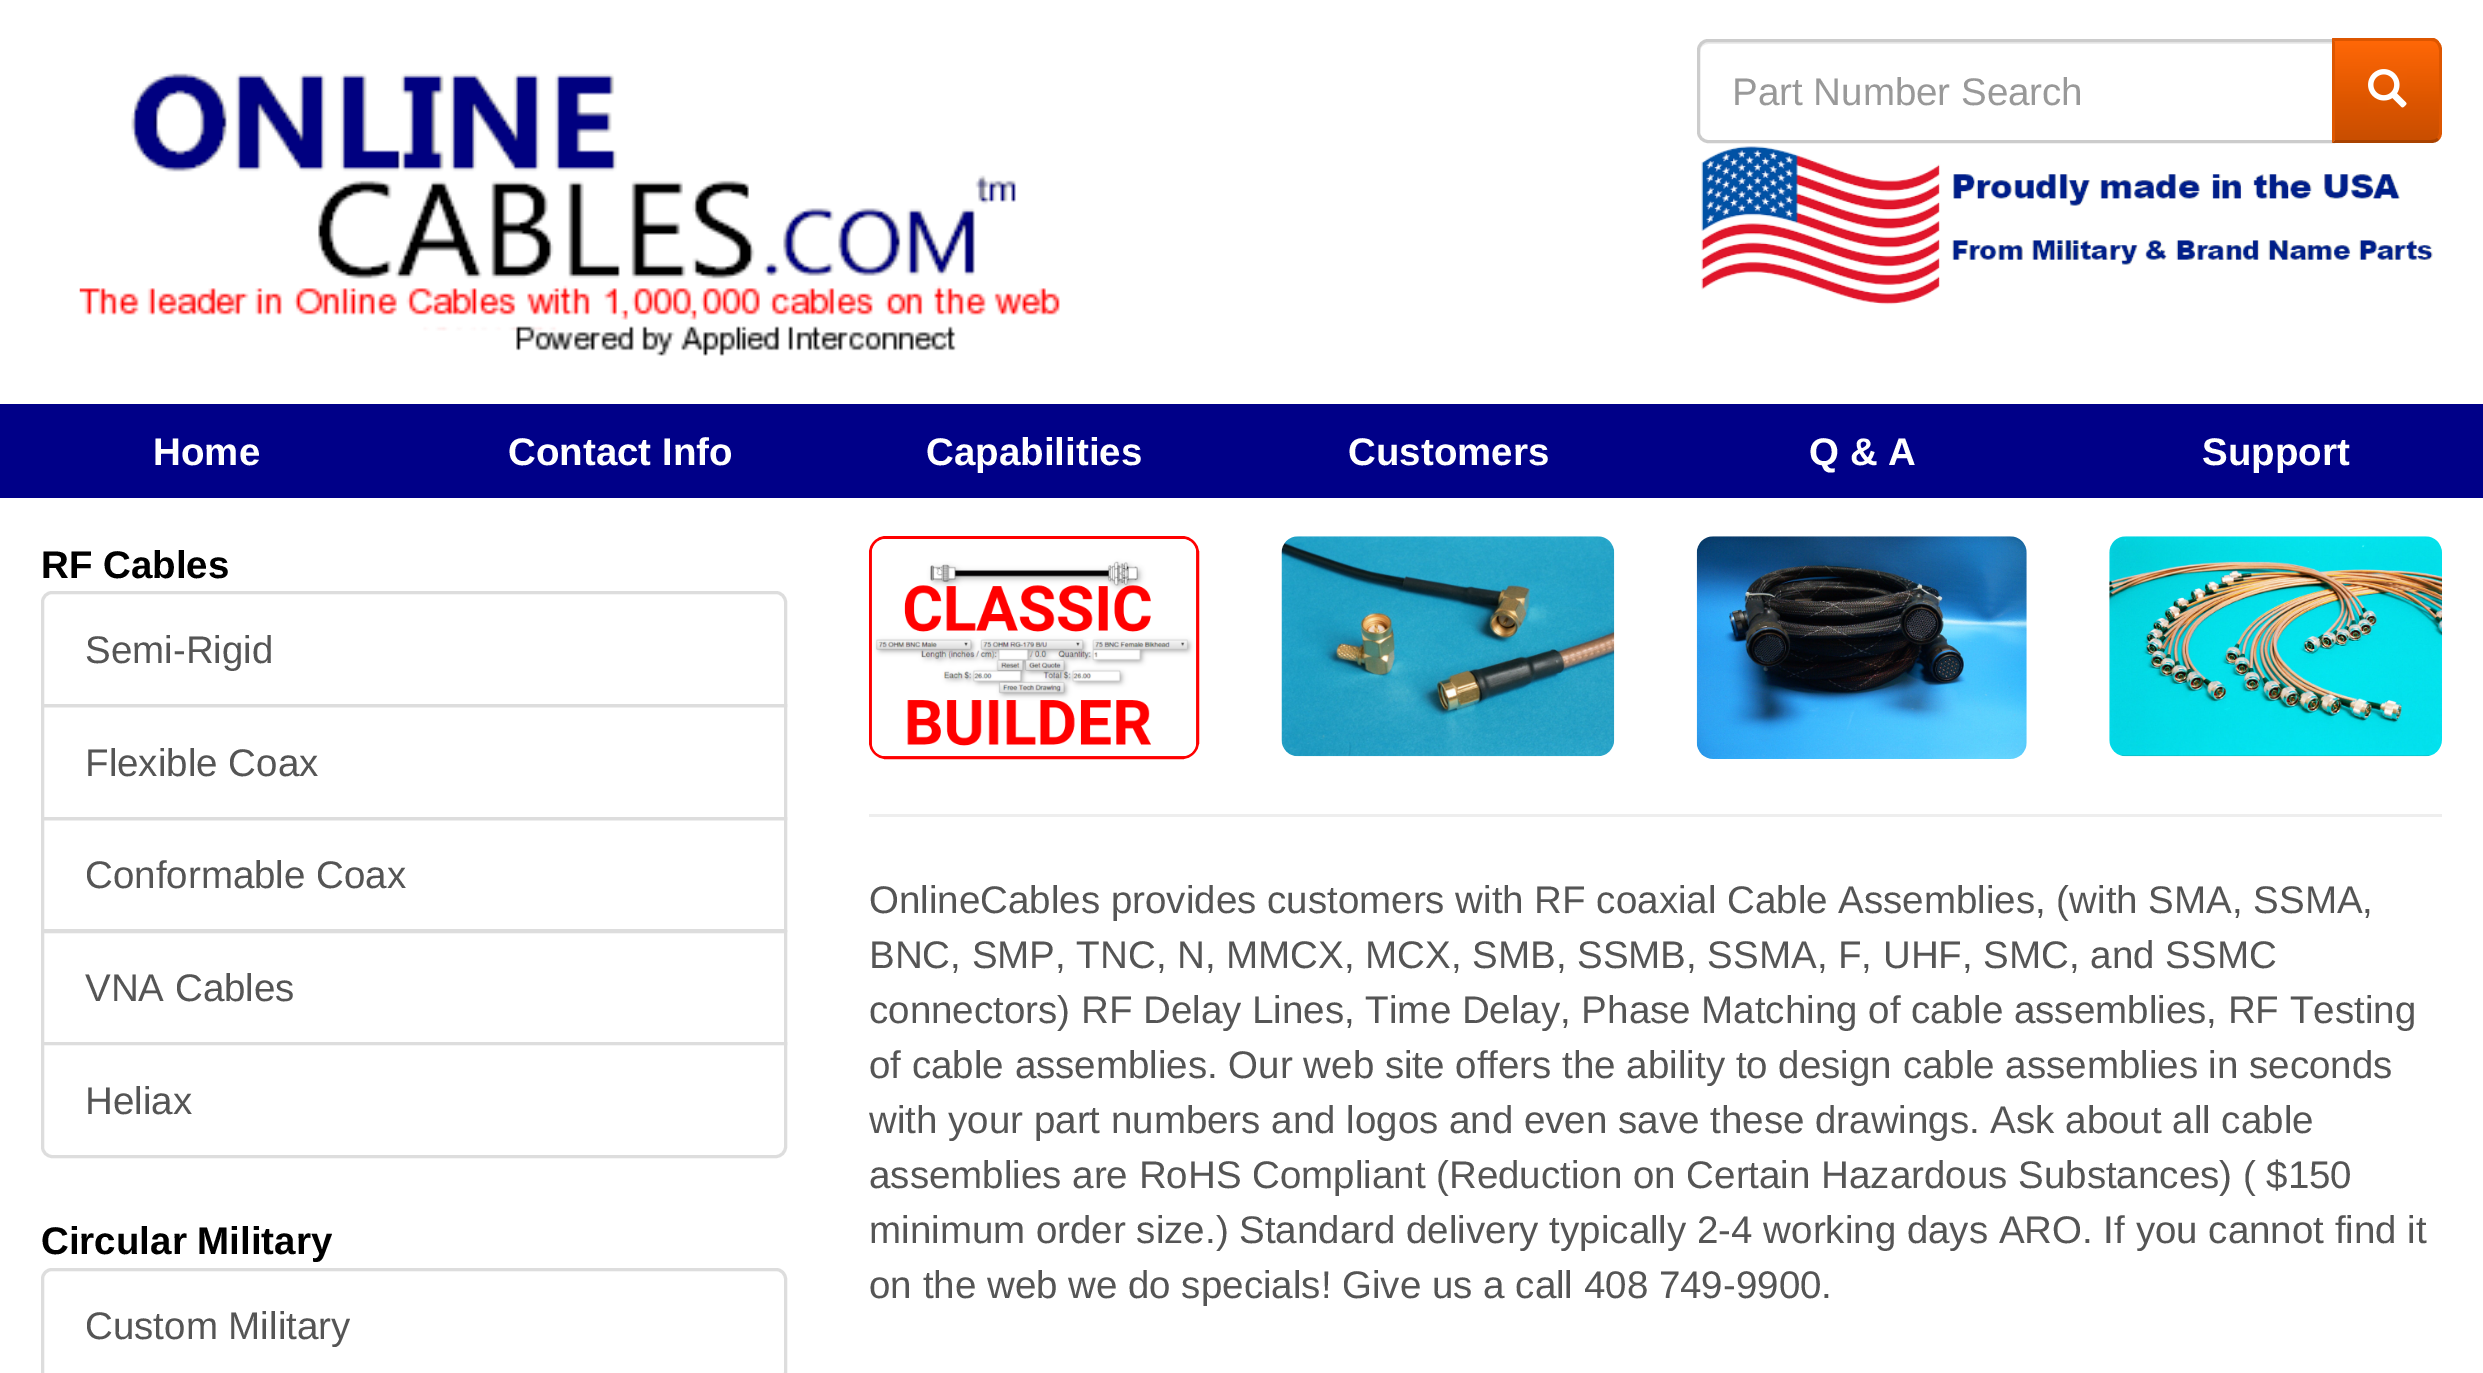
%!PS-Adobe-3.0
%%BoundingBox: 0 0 2483 1373
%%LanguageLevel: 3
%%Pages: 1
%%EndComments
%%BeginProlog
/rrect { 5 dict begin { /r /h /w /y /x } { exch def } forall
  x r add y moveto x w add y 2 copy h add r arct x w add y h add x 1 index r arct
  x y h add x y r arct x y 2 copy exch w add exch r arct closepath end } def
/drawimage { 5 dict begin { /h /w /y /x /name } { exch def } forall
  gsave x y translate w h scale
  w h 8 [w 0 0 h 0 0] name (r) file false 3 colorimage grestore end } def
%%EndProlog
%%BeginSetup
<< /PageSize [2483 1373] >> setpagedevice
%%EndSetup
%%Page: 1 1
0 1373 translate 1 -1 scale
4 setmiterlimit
1 setgray
0 0 2483 1373 rectfill
(images/1.raw) 79 73 981 283 drawimage
0.925 setgray
newpath 1708 44 moveto 2332 44 lineto 2332 41 lineto 1708 41 lineto 1702 41 1700 47 1700 52 curveto 1700 48 1703 44 1708 44 curveto closepath fill
0.8 setgray
3 setlinewidth
newpath 1708 40.5 moveto 2333.5 40.5 lineto 2333.5 141.5 lineto 1708 141.5 lineto 1703 141.5 1698.5 137 1698.5 132 curveto 1698.5 50 lineto 1698.5 45 1703 40.5 1708 40.5 curveto closepath stroke
gsave
newpath 2332 39 moveto 2431 39 lineto 2437 39 2442 44 2442 50 curveto 2442 132 lineto 2442 138 2437 143 2431 143 curveto 2332 143 lineto closepath clip newpath
gsave newpath 2335 41 moveto 2439 41 lineto 2439 140 lineto 2335 140 lineto closepath clip newpath
<< /ShadingType 2 /ColorSpace /DeviceRGB /Coords [2387 41 2387 140] /Extend [true true] /Function << /FunctionType 3 /Domain [0 1] /Functions [<< /FunctionType 2 /Domain [0 1] /C0 [1 0.404 0.027] /C1 [0.867 0.337 0] /N 1 >> << /FunctionType 2 /Domain [0 1] /C0 [0.867 0.337 0] /C1 [0.788 0.306 0] /N 1 >>] /Bounds [0.6] /Encode [0 1 0 1] >> >> shfill grestore
grestore
0.867 0.337 0 setrgbcolor
newpath 2335 41 moveto 2335 42 lineto 2332 38 lineto 2434 38 lineto 2436 39 2438 40 2439 42 curveto 2437 44 lineto 2436 42 2434 41 2431 41 curveto closepath fill
newpath 2442 132 moveto 2442 50 lineto 2442 47 2441 44 2439 42 curveto 2437 44 lineto 2438 45 2439 48 2439 50 curveto 2439 132 lineto 2439 134 2438 136 2437 138 curveto 2439 140 lineto 2441 138 2442 135 2442 132 curveto closepath fill
0.667 0.259 0 setrgbcolor
newpath 2431 143 moveto 2434 143 2437 142 2439 140 curveto 2437 138 lineto 2436 139 2434 140 2431 140 curveto 2335 140 lineto 2332 143 lineto closepath fill
0.867 0.337 0 setrgbcolor
newpath 2332 143 moveto 2335 140 lineto 2335 42 lineto 2332 38 lineto closepath fill
(images/2.raw) 2368 69 39 39 drawimage
(images/3.raw) 1701 146 732 159 drawimage
0 0 0.533 setrgbcolor
0 404 2483 94 rectfill
0.867 setgray
newpath 52 592.5 moveto 776 592.5 lineto 781 592.5 785.5 597 785.5 602 curveto 785.5 705.5 lineto 42.5 705.5 lineto 42.5 602 lineto 42.5 597 47 592.5 52 592.5 curveto closepath stroke
42.5 705.5 743 113 rectstroke
42.5 818.5 743 112 rectstroke
42.5 931.5 743 112 rectstroke
1 setgray
newpath 42.5 1043.5 moveto 785.5 1043.5 lineto 785.5 1147 lineto 785.5 1152 781 1156.5 776 1156.5 curveto 52 1156.5 lineto 47 1156.5 42.5 1152 42.5 1147 curveto closepath gsave fill grestore
0.867 setgray
stroke
42.5 1269.5 743 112 9.5 rrect stroke
1 0 0 setrgbcolor
870.5 537.5 327 220 15.5 rrect stroke
(images/4.raw) 871 539 326 218 drawimage
(images/5.raw) 1281 536 334 221 drawimage
(images/6.raw) 1696 536 331 223 drawimage
(images/7.raw) 2109 536 333 221 drawimage
0.933 setgray
869 814 1573 3 rectfill
/LiberationSans-Regular [38.5 0 0 -38.5 0 0] selectfont
0.6 setgray
1732 105 moveto (Part Number Search) show
/LiberationSans-Bold [38.5 0 0 -38.5 0 0] selectfont
1 setgray
153 465 moveto (Home) show
508 465 moveto (Contact Info) show
926 465 moveto (Capabilities) show
1348 465 moveto (Customers) show
1809 465 moveto (Q & A) show
2202 465 moveto (Support) show
0 setgray
41 578 moveto (RF Cables) show
/LiberationSans-Regular [38.5 0 0 -38.5 0 0] selectfont
0.333 setgray
85 663 moveto (Semi-Rigid) show
85 776 moveto (Flexible Coax) show
85 888 moveto (Conformable Coax) show
85 1001 moveto (VNA Cables) show
85 1114 moveto (Heliax) show
/LiberationSans-Bold [38.5 0 0 -38.5 0 0] selectfont
0 setgray
41 1254 moveto (Circular Military) show
/LiberationSans-Regular [38.5 0 0 -38.5 0 0] selectfont
0.333 setgray
85 1339 moveto (Custom Military) show
869 913 moveto (OnlineCables provides customers with RF coaxial Cable Assemblies, \(with SMA, SSMA,) show
869 968 moveto (BNC, SMP, TNC, N, MMCX, MCX, SMB, SSMB, SSMA, F, UHF, SMC, and SSMC) show
869 1023 moveto (connectors\) RF Delay Lines, Time Delay, Phase Matching of cable assemblies, RF Testing) show
869 1078 moveto (of cable assemblies. Our web site offers the ability to design cable assemblies in seconds) show
869 1133 moveto (with your part numbers and logos and even save these drawings. Ask about all cable) show
869 1188 moveto (assemblies are RoHS Compliant \(Reduction on Certain Hazardous Substances\) \( $150) show
869 1243 moveto (minimum order size.\) Standard delivery typically 2-4 working days ARO. If you cannot find it) show
869 1298 moveto (on the web we do specials! Give us a call 408 749-9900.) show
showpage
%%EOF
